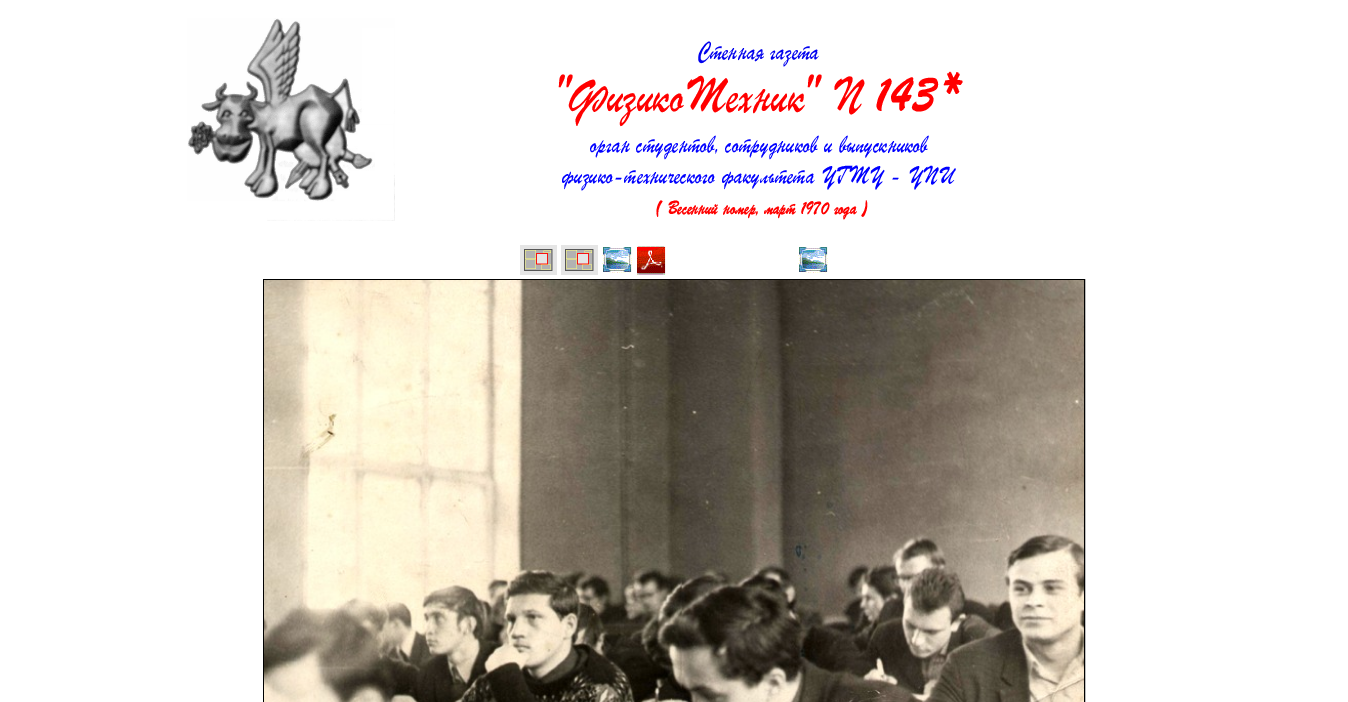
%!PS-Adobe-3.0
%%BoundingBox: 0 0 1348 702
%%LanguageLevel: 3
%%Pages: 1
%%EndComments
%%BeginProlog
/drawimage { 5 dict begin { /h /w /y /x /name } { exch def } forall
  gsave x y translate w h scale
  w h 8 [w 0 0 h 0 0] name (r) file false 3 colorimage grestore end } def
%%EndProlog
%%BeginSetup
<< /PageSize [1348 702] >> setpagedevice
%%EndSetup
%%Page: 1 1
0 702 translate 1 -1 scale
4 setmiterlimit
1 setgray
0 0 1348 702 rectfill
(images/1.raw) 187 18 208 203 drawimage
(images/2.raw) 520 245 37 30 drawimage
(images/2.raw) 561 245 37 30 drawimage
(images/3.raw) 602 247 30 26 drawimage
(images/4.raw) 637 246 29 29 drawimage
(images/3.raw) 798 247 30 26 drawimage
0 setgray
263.5 279.5 821 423 rectstroke
(images/5.raw) 264 280 820 422 drawimage
/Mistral-Italic [24 0 0 -24 0 0] selectfont
0 0 0.933 setrgbcolor
698 59 moveto (Стенная газета) show
/Mistral-Italic [48 0 0 -48 0 0] selectfont
1 0 0 setrgbcolor
555 111 moveto ("ФизикоТехник" N) show
/Mistral-BoldItalic [48 0 0 -48 0 0] selectfont
876 111 moveto (143*) show
/Mistral-Italic [24 0 0 -24 0 0] selectfont
0 0 1 setrgbcolor
590 152 moveto (орган студентов, сотрудников и выпускников) show
562 183 moveto (физико-технического факультета УГТУ - УПИ) show
/Mistral-BoldItalic [18 0 0 -18 0 0] selectfont
1 0 0 setrgbcolor
655 214 moveto (\( Весенний номер, март 1970 года \)) show
showpage
%%EOF
